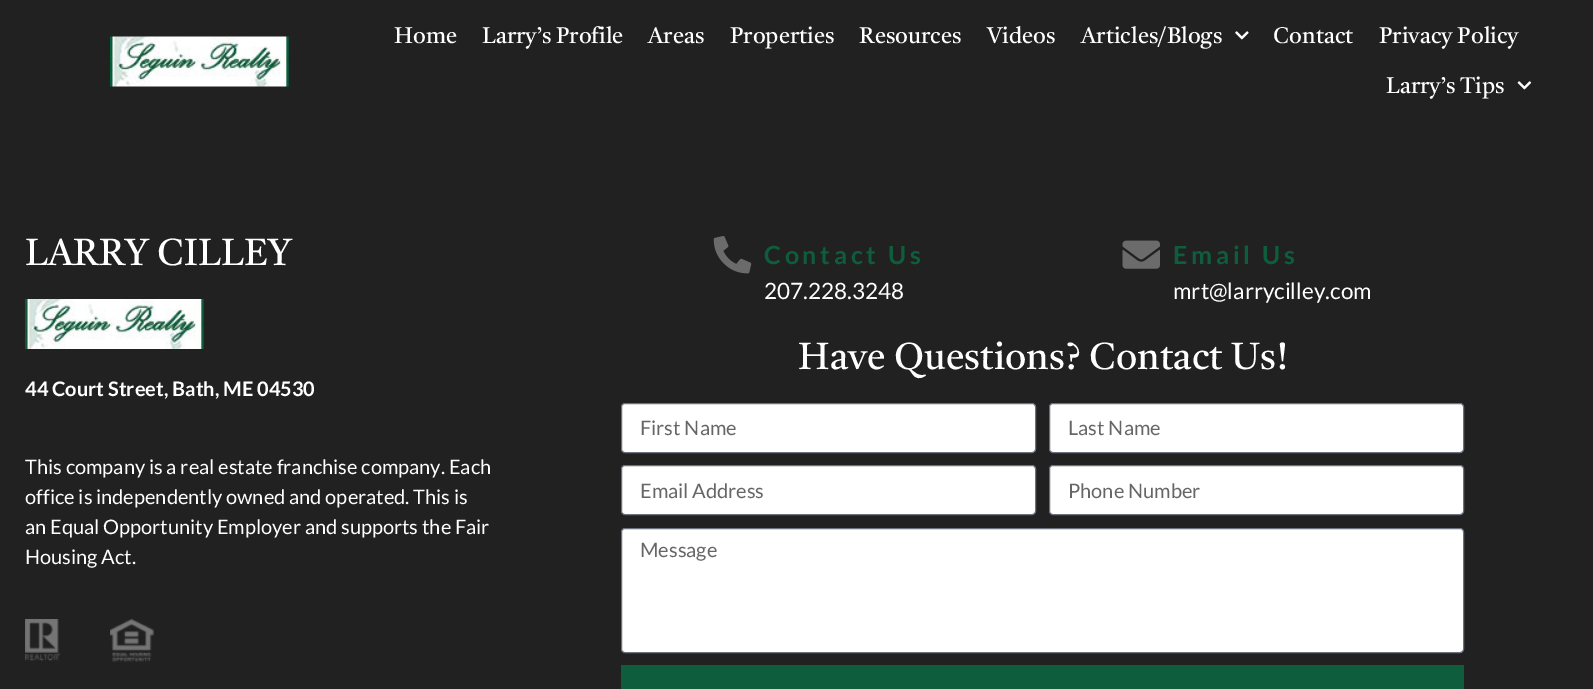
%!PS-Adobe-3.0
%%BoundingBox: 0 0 1593 689
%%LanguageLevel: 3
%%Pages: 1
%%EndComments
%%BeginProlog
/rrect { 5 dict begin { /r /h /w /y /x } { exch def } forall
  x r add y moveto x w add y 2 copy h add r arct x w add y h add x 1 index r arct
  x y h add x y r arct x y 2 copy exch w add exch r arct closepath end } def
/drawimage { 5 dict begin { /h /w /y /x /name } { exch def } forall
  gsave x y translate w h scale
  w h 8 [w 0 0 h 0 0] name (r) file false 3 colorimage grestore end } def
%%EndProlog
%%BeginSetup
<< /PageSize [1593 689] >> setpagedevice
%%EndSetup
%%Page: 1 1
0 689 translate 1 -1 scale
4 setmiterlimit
0.129 setgray
0 0 1593 689 rectfill
(images/1.raw) 110 36 179 51 drawimage
(images/2.raw) 1235 31 14 9 drawimage
(images/3.raw) 1517 81 15 9 drawimage
(images/4.raw) 25 299 179 50 drawimage
(images/5.raw) 25 619 35 42 drawimage
(images/6.raw) 110 619 44 43 drawimage
(images/7.raw) 713 236 39 38 drawimage
(images/8.raw) 1122 240 38 29 drawimage
1 setgray
621.5 403.5 414 49 3.5 rrect gsave fill grestore
0.412 0.447 0.49 setrgbcolor
stroke
1 setgray
1049.5 403.5 414 49 3.5 rrect gsave fill grestore
0.412 0.447 0.49 setrgbcolor
stroke
1 setgray
621.5 465.5 414 49 3.5 rrect gsave fill grestore
0.412 0.447 0.49 setrgbcolor
stroke
1 setgray
1049.5 465.5 414 49 3.5 rrect gsave fill grestore
0.412 0.447 0.49 setrgbcolor
stroke
1 setgray
621.5 528.5 842 124 3.5 rrect gsave fill grestore
0.412 0.447 0.49 setrgbcolor
stroke
0.055 0.365 0.239 setrgbcolor
621 665 843 24 rectfill
/Castoro-Regular [22.5 0 0 -22.5 0 0] selectfont
1 setgray
394 43 moveto (Home) show
482 43 moveto (Larry’s Profile) show
648 43 moveto (Areas) show
730 43 moveto (Properties) show
859 43 moveto (Resources) show
987 43 moveto (Videos) show
1081 43 moveto (Articles/Blogs) show
1273 43 moveto (Contact) show
1379 43 moveto (Privacy Policy) show
1386 93 moveto (Larry’s Tips) show
/Castoro-Regular [37.5 0 0 -37.5 0 0] selectfont
25 265 moveto (LARRY CILLEY) show
/Lato-Bold [20 0 0 -20 0 0] selectfont
25 396 moveto (44 Court Street, Bath, ME 04530) show
/Lato-Regular [20 0 0 -20 0 0] selectfont
25 474 moveto (This company is a real estate franchise company. Each) show
25 504 moveto (office is independently owned and operated. This is) show
25 534 moveto (an Equal Opportunity Employer and supports the Fair) show
25 564 moveto (Housing Act.) show
/Lato-Bold [25 0 0 -25 0 0] selectfont
0.055 0.365 0.239 setrgbcolor
764 264 moveto 3.75 0 (Contact Us) ashow
/Lato-Regular [22.5 0 0 -22.5 0 0] selectfont
1 setgray
764 299 moveto (207.228.3248) show
/Lato-Bold [25 0 0 -25 0 0] selectfont
0.055 0.365 0.239 setrgbcolor
1173 264 moveto 3.75 0 (Email Us) ashow
/Lato-Regular [22.5 0 0 -22.5 0 0] selectfont
1 setgray
1173 299 moveto (mrt@larrycilley.com) show
/Castoro-Regular [37.5 0 0 -37.5 0 0] selectfont
798 369 moveto (Have Questions? Contact Us!) show
/Lato-Regular [20 0 0 -20 0 0] selectfont
0.4 setgray
640 435 moveto (First Name) show
1068 435 moveto (Last Name) show
640 498 moveto (Email Address) show
1068 498 moveto (Phone Number) show
640 557 moveto (Message) show
showpage
%%EOF
